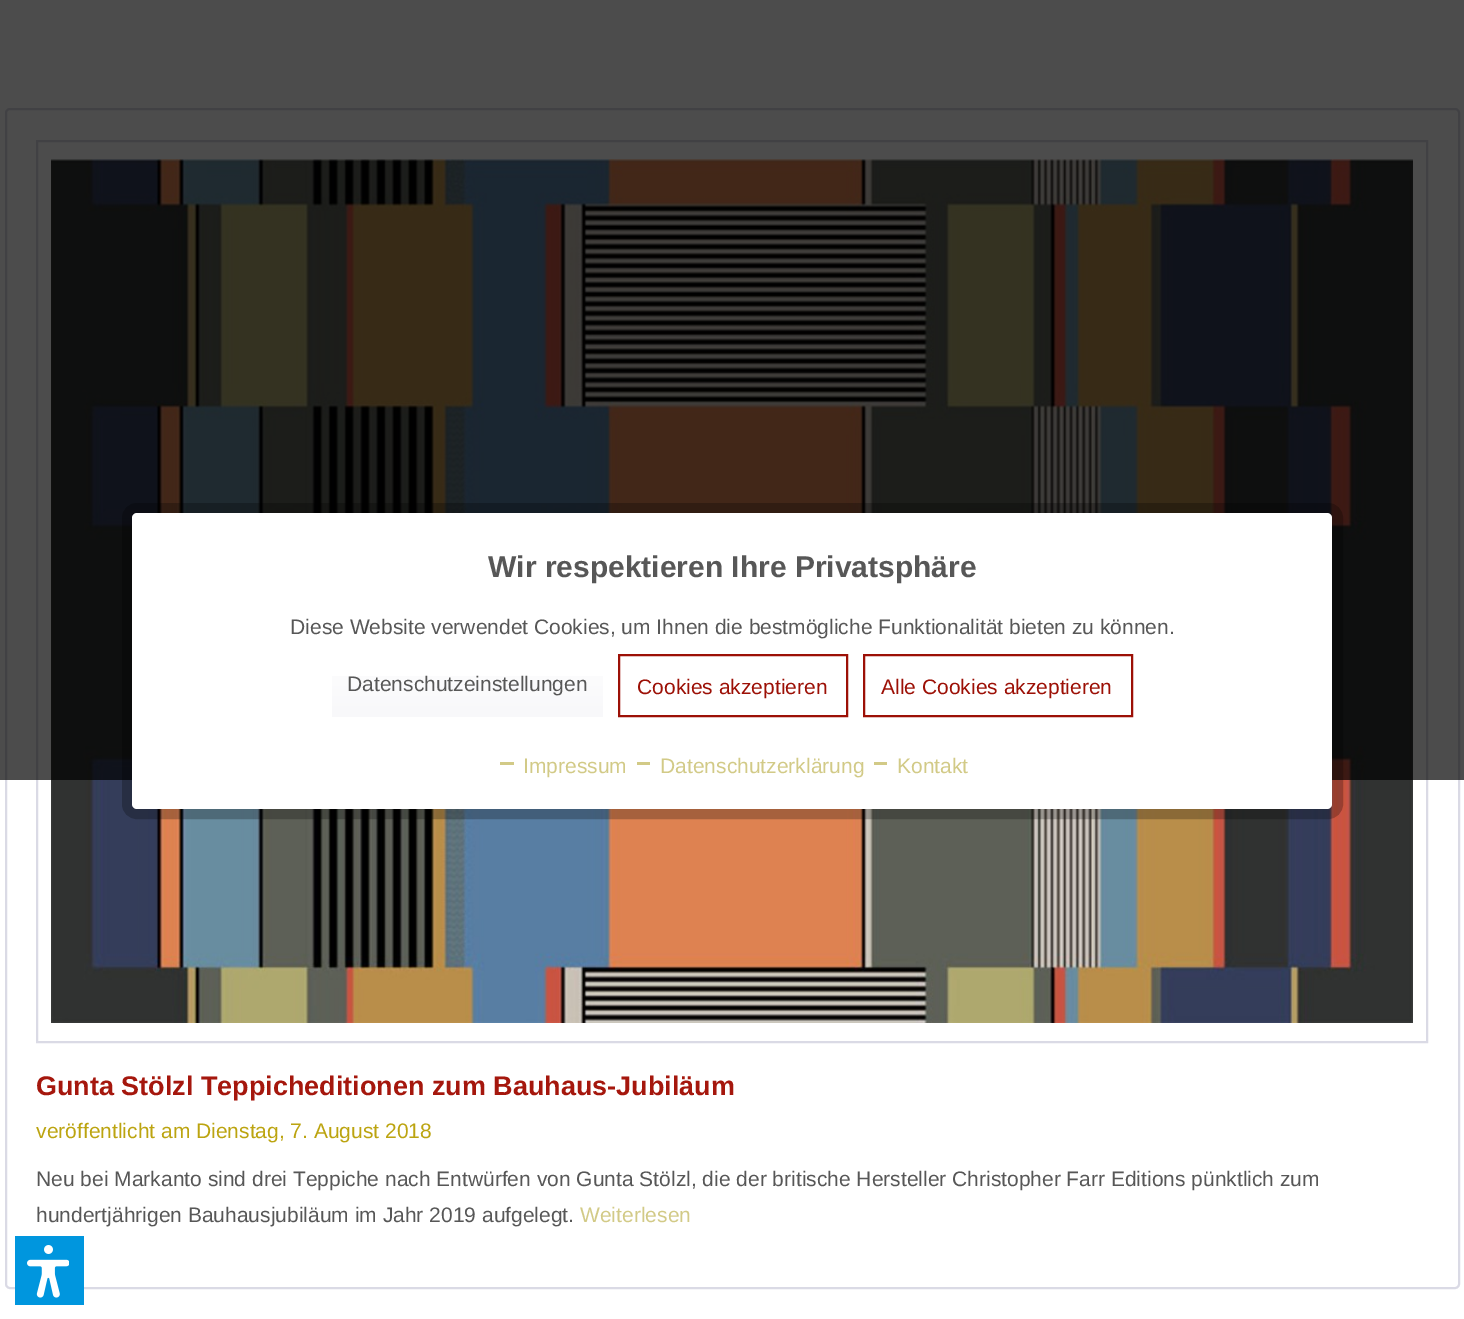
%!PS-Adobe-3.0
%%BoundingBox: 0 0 1464 1319
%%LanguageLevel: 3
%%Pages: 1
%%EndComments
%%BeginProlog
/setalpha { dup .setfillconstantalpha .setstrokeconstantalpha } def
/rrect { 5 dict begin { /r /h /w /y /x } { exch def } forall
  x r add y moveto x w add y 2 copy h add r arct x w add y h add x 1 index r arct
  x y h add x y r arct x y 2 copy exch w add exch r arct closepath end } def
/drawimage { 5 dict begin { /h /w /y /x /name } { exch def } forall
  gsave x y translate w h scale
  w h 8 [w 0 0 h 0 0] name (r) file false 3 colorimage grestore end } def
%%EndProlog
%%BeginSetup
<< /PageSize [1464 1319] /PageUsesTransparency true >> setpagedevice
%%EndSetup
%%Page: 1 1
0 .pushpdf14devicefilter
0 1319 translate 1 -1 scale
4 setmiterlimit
1 setgray
0 0 1464 1319 rectfill
0.855 0.855 0.898 setrgbcolor
2 setlinewidth
6 109 1453 1179 4 rrect stroke
37 141 1390 901 rectstroke
(images/1.raw) 51 159 1362 864 drawimage
0.7 setalpha
0 setgray
0 0 1464 780 rectfill
0.25 setalpha
11 setlinewidth
127.5 508.5 1210 305 9.5 rrect stroke
1 setalpha
1 setgray
132 513 1200 296 5 rrect fill
gsave newpath 332 676 moveto 603 676 lineto 603 717 lineto 332 717 lineto closepath clip newpath
<< /ShadingType 2 /ColorSpace /DeviceRGB /Coords [467 653 467 716] /Extend [true true] /Function << /FunctionType 2 /Domain [0 1] /C0 [1 1 1] /C1 [0.973 0.973 0.98] /N 1 >> >> shfill grestore
0.612 0.063 0.024 setrgbcolor
2 setlinewidth
619 655 228 61 rectstroke
864 655 268 61 rectstroke
0.824 0.792 0.529 setrgbcolor
500 762 14 3 rectfill
637 762 13 3 rectfill
874 762 13 3 rectfill
0 0.588 0.871 setrgbcolor
15 1236 69 69 rectfill
(images/2.raw) 27 1245 42 53 drawimage
/LiberationSans-Bold [30 0 0 -30 0 0] selectfont
0.341 setgray
488 577 moveto (Wir respektieren Ihre Privatsphäre) show
/LiberationSans-Regular [21 0 0 -21 0 0] selectfont
290 634 moveto (Diese Website verwendet Cookies, um Ihnen die bestmögliche Funktionalität bieten zu können.) show
347 691 moveto (Datenschutzeinstellungen) show
0.612 0.063 0.024 setrgbcolor
637 694 moveto (Cookies akzeptieren) show
881 694 moveto (Alle Cookies akzeptieren) show
0.824 0.792 0.529 setrgbcolor
523 773 moveto (Impressum) show
660 773 moveto (Datenschutzerklärung) show
897 773 moveto (Kontakt) show
/LiberationSans-Bold [27 0 0 -27 0 0] selectfont
0.647 0.09 0.051 setrgbcolor
36 1095 moveto (Gunta Stölzl Teppicheditionen zum Bauhaus-Jubiläum) show
/LiberationSans-Regular [21 0 0 -21 0 0] selectfont
0.737 0.643 0.063 setrgbcolor
36 1138 moveto (veröffentlicht am Dienstag, 7. August 2018) show
0.341 setgray
36 1186 moveto (Neu bei Markanto sind drei Teppiche nach Entwürfen von Gunta Stölzl, die der britische Hersteller Christopher Farr Editions pünktlich zum) show
36 1222 moveto (hundertjährigen Bauhausjubiläum im Jahr 2019 aufgelegt.) show
0.824 0.792 0.529 setrgbcolor
580 1222 moveto (Weiterlesen) show
.poppdf14devicefilter showpage
%%EOF
